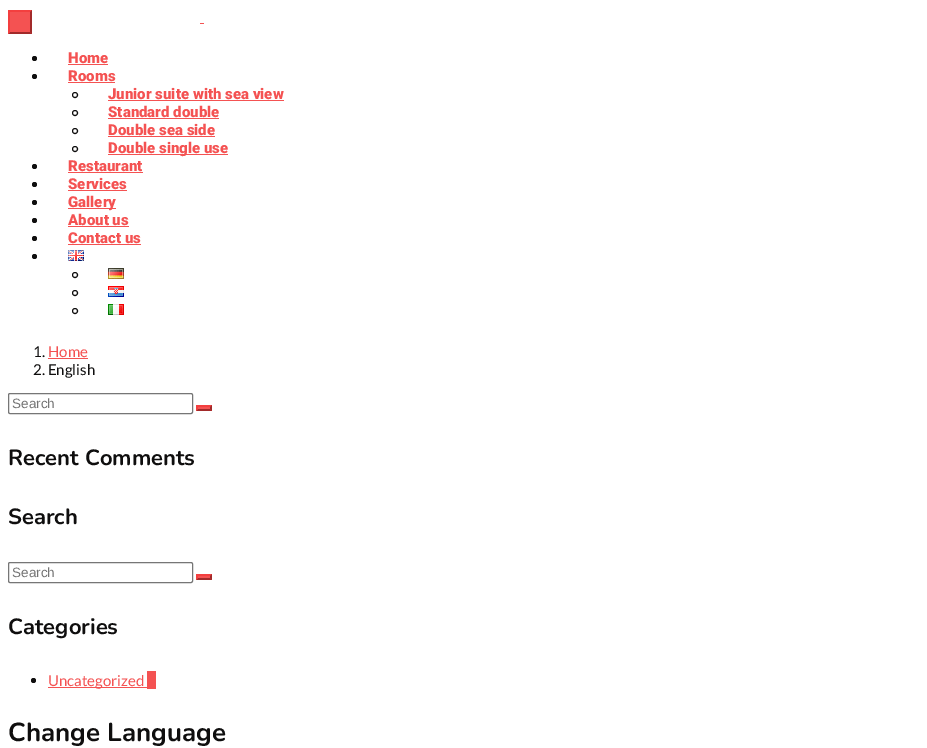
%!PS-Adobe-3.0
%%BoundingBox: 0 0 927 748
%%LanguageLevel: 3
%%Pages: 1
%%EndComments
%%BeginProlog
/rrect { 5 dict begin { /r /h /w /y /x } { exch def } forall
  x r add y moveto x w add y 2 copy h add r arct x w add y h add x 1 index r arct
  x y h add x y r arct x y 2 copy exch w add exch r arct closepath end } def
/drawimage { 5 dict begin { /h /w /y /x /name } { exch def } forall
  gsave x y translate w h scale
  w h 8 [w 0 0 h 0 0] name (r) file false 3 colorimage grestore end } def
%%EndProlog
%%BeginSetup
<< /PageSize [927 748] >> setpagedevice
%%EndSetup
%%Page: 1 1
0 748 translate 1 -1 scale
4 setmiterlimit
1 setgray
0 0 927 748 rectfill
0.957 0.322 0.322 setrgbcolor
8 10 24 24 rectfill
0.953 0.247 0.247 setrgbcolor
newpath 8 10 moveto 32 10 lineto 30 12 lineto 10 12 lineto closepath fill
0.635 0.165 0.165 setrgbcolor
newpath 32 10 moveto 32 34 lineto 30 32 lineto 30 12 lineto closepath fill
newpath 32 34 moveto 8 34 lineto 10 32 lineto 30 32 lineto closepath fill
0.953 0.247 0.247 setrgbcolor
newpath 8 34 moveto 8 10 lineto 10 12 lineto 10 32 lineto closepath fill
0.957 0.322 0.322 setrgbcolor
200 23 4 1 rectfill
0.059 0.055 0.055 setrgbcolor
newpath 34.5 58.5 2.5 0 360 arc closepath fill
0.957 0.322 0.322 setrgbcolor
68 64 40 1 rectfill
0.059 0.055 0.055 setrgbcolor
newpath 34.5 76.5 2.5 0 360 arc closepath fill
0.957 0.322 0.322 setrgbcolor
68 82 47 1 rectfill
0.059 0.055 0.055 setrgbcolor
newpath 75 95 2.5 0 360 arc closepath stroke
0.957 0.322 0.322 setrgbcolor
108 100 176 1 rectfill
0.059 0.055 0.055 setrgbcolor
newpath 75 113 2.5 0 360 arc closepath stroke
0.957 0.322 0.322 setrgbcolor
108 118 111 1 rectfill
0.059 0.055 0.055 setrgbcolor
newpath 75 131 2.5 0 360 arc closepath stroke
0.957 0.322 0.322 setrgbcolor
108 136 107 1 rectfill
0.059 0.055 0.055 setrgbcolor
newpath 75 149 2.5 0 360 arc closepath stroke
0.957 0.322 0.322 setrgbcolor
108 154 120 1 rectfill
0.059 0.055 0.055 setrgbcolor
newpath 34.5 166.5 2.5 0 360 arc closepath fill
0.957 0.322 0.322 setrgbcolor
68 172 75 1 rectfill
0.059 0.055 0.055 setrgbcolor
newpath 34.5 184.5 2.5 0 360 arc closepath fill
0.957 0.322 0.322 setrgbcolor
68 190 59 1 rectfill
0.059 0.055 0.055 setrgbcolor
newpath 34.5 202.5 2.5 0 360 arc closepath fill
0.957 0.322 0.322 setrgbcolor
68 208 48 1 rectfill
0.059 0.055 0.055 setrgbcolor
newpath 34.5 220.5 2.5 0 360 arc closepath fill
0.957 0.322 0.322 setrgbcolor
68 226 61 1 rectfill
0.059 0.055 0.055 setrgbcolor
newpath 34.5 238.5 2.5 0 360 arc closepath fill
0.957 0.322 0.322 setrgbcolor
68 244 73 1 rectfill
0.059 0.055 0.055 setrgbcolor
newpath 34.5 256.5 2.5 0 360 arc closepath fill
(images/1.raw) 68 250 16 11 drawimage
newpath 75 275 2.5 0 360 arc closepath stroke
(images/2.raw) 108 268 16 11 drawimage
newpath 75 293 2.5 0 360 arc closepath stroke
(images/3.raw) 108 286 16 11 drawimage
newpath 75 311 2.5 0 360 arc closepath stroke
(images/4.raw) 108 304 16 11 drawimage
0.957 0.322 0.322 setrgbcolor
48 358 40 1 rectfill
0.463 setgray
8.5 393.5 184 20 1.5 rrect stroke
0.957 0.322 0.322 setrgbcolor
196 405 16 6 rectfill
0.953 0.247 0.247 setrgbcolor
newpath 196 405 moveto 212 405 lineto 210 407 lineto 198 407 lineto closepath fill
0.635 0.165 0.165 setrgbcolor
newpath 212 405 moveto 212 411 lineto 210 409 lineto 210 407 lineto closepath fill
newpath 212 411 moveto 196 411 lineto 198 409 lineto 210 409 lineto closepath fill
0.953 0.247 0.247 setrgbcolor
newpath 196 411 moveto 196 405 lineto 198 407 lineto 198 409 lineto closepath fill
0.463 setgray
8.5 562.5 184 20 1.5 rrect stroke
0.957 0.322 0.322 setrgbcolor
196 574 16 6 rectfill
0.953 0.247 0.247 setrgbcolor
newpath 196 574 moveto 212 574 lineto 210 576 lineto 198 576 lineto closepath fill
0.635 0.165 0.165 setrgbcolor
newpath 212 574 moveto 212 580 lineto 210 578 lineto 210 576 lineto closepath fill
newpath 212 580 moveto 196 580 lineto 198 578 lineto 210 578 lineto closepath fill
0.953 0.247 0.247 setrgbcolor
newpath 196 580 moveto 196 574 lineto 198 576 lineto 198 578 lineto closepath fill
0.059 0.055 0.055 setrgbcolor
newpath 33.5 680.5 2.5 0 360 arc closepath fill
0.957 0.322 0.322 setrgbcolor
48 687 99 1 rectfill
147 671 9 18 rectfill
/Roboto-Black [15 0 0 -15 0 0] selectfont
68 63 moveto (Home) show
68 81 moveto (Rooms) show
108 99 moveto (Junior suite with sea view) show
108 117 moveto (Standard double) show
108 135 moveto (Double sea side) show
108 153 moveto (Double single use) show
68 171 moveto (Restaurant) show
68 189 moveto (Services) show
68 207 moveto (Gallery) show
68 225 moveto (About us) show
68 243 moveto (Contact us) show
/Lato-Regular [15 0 0 -15 0 0] selectfont
0.059 0.055 0.055 setrgbcolor
33 357 moveto (1.) show
0.957 0.322 0.322 setrgbcolor
48 357 moveto (Home) show
0.059 0.055 0.055 setrgbcolor
33 375 moveto (2. English) show
/LiberationSans-Regular [13.5 0 0 -13.5 0 0] selectfont
0.459 setgray
12 408 moveto (Search) show
/Nunito-Bold [22 0 0 -22 0 0] selectfont
0.059 0.055 0.055 setrgbcolor
8 465 moveto (Recent Comments) show
8 524 moveto (Search) show
/LiberationSans-Regular [13.5 0 0 -13.5 0 0] selectfont
0.459 setgray
12 577 moveto (Search) show
/Nunito-Bold [22 0 0 -22 0 0] selectfont
0.059 0.055 0.055 setrgbcolor
8 634 moveto (Categories) show
/Lato-Regular [15 0 0 -15 0 0] selectfont
0.957 0.322 0.322 setrgbcolor
48 686 moveto (Uncategorized) show
/Nunito-Bold [26 0 0 -26 0 0] selectfont
0.059 0.055 0.055 setrgbcolor
8 741 moveto (Change Language) show
showpage
%%EOF
